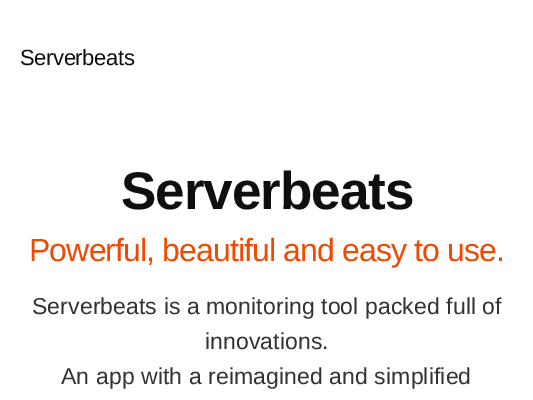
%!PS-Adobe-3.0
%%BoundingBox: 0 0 533 400
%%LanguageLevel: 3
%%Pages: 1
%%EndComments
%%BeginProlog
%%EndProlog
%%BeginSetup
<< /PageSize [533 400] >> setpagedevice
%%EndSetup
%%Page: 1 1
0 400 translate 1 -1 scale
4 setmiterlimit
1 setgray
0 0 533 400 rectfill
/LiberationSans-Regular [22 0 0 -22 0 0] selectfont
0.059 setgray
20 65 moveto -0.4 0 (Serverbeats) ashow
/LiberationSans-Bold [53 0 0 -53 0 0] selectfont
121 209 moveto -1 0 (Serverbeats) ashow
/LiberationSans-Regular [32 0 0 -32 0 0] selectfont
0.941 0.286 0.012 setrgbcolor
29 261 moveto -0.9 0 (Powerful, beautiful and easy to use.) ashow
/LiberationSans-Regular [23 0 0 -23 0 0] selectfont
0.2 setgray
32 314 moveto 0.1 0 (Serverbeats is a monitoring tool packed full of) ashow
205 349 moveto 0.1 0 (innovations.) ashow
61 384 moveto 0.1 0 (An app with a reimagined and simplified) ashow
showpage
%%EOF
